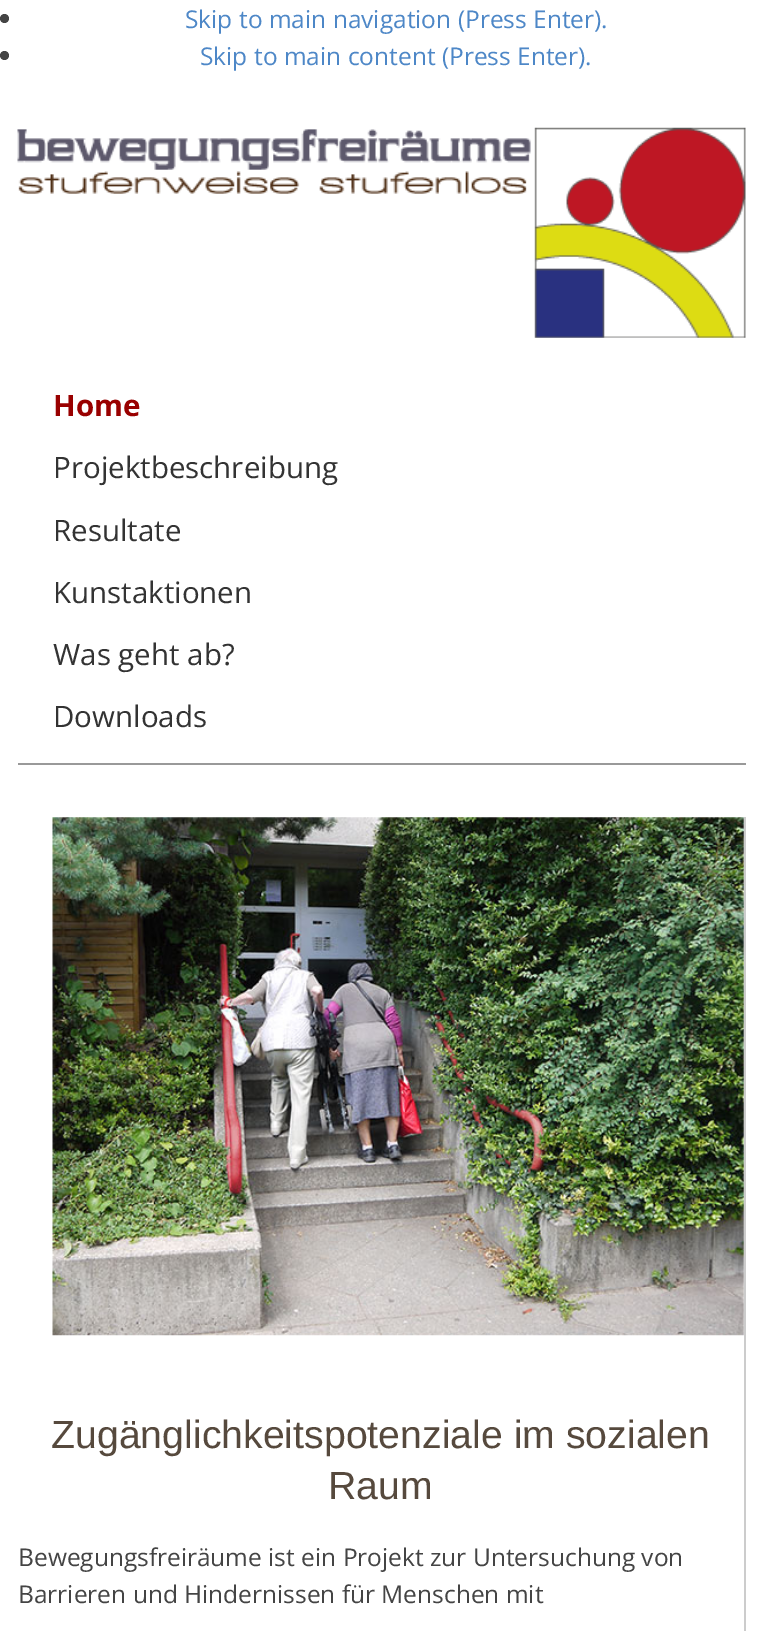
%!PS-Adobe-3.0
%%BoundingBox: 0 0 763 1631
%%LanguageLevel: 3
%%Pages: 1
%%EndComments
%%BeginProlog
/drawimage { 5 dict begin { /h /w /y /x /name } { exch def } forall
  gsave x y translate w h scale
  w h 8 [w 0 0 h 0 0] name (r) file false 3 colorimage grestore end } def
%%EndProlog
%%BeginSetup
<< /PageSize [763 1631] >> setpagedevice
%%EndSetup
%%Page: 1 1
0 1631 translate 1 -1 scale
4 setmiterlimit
1 setgray
0 0 763 1631 rectfill
0.267 setgray
newpath 4.5 18.5 4.5 0 360 arc closepath fill
newpath 4.5 55.5 4.5 0 360 arc closepath fill
(images/1.raw) 17 127 729 211 drawimage
0.6 setgray
18 763 728 2 rectfill
0.8 setgray
744 817 2 814 rectfill
(images/2.raw) 52 817 692 519 drawimage
/OpenSans-Regular [24.5 0 0 -24.5 0 0] selectfont
0.302 0.529 0.78 setrgbcolor
185 28 moveto (Skip to main navigation \(Press Enter\).) show
200 65 moveto (Skip to main content \(Press Enter\).) show
/OpenSans-Bold [29.5 0 0 -29.5 0 0] selectfont
0.6 0 0 setrgbcolor
53 416 moveto (Home) show
/OpenSans-Regular [29.5 0 0 -29.5 0 0] selectfont
0.2 setgray
53 478 moveto (Projektbeschreibung) show
53 541 moveto (Resultate) show
53 603 moveto (Kunstaktionen) show
53 665 moveto (Was geht ab?) show
53 727 moveto (Downloads) show
/LiberationSans-Regular [39.25 0 0 -39.25 0 0] selectfont
0.337 0.286 0.239 setrgbcolor
51 1448 moveto (Zugänglichkeitspotenziale im sozialen) show
328 1499 moveto (Raum) show
/OpenSans-Regular [24.5 0 0 -24.5 0 0] selectfont
0.267 setgray
18 1566 moveto (Bewegungsfreiräume ist ein Projekt zur Untersuchung von) show
18 1603 moveto (Barrieren und Hindernissen für Menschen mit) show
showpage
%%EOF
